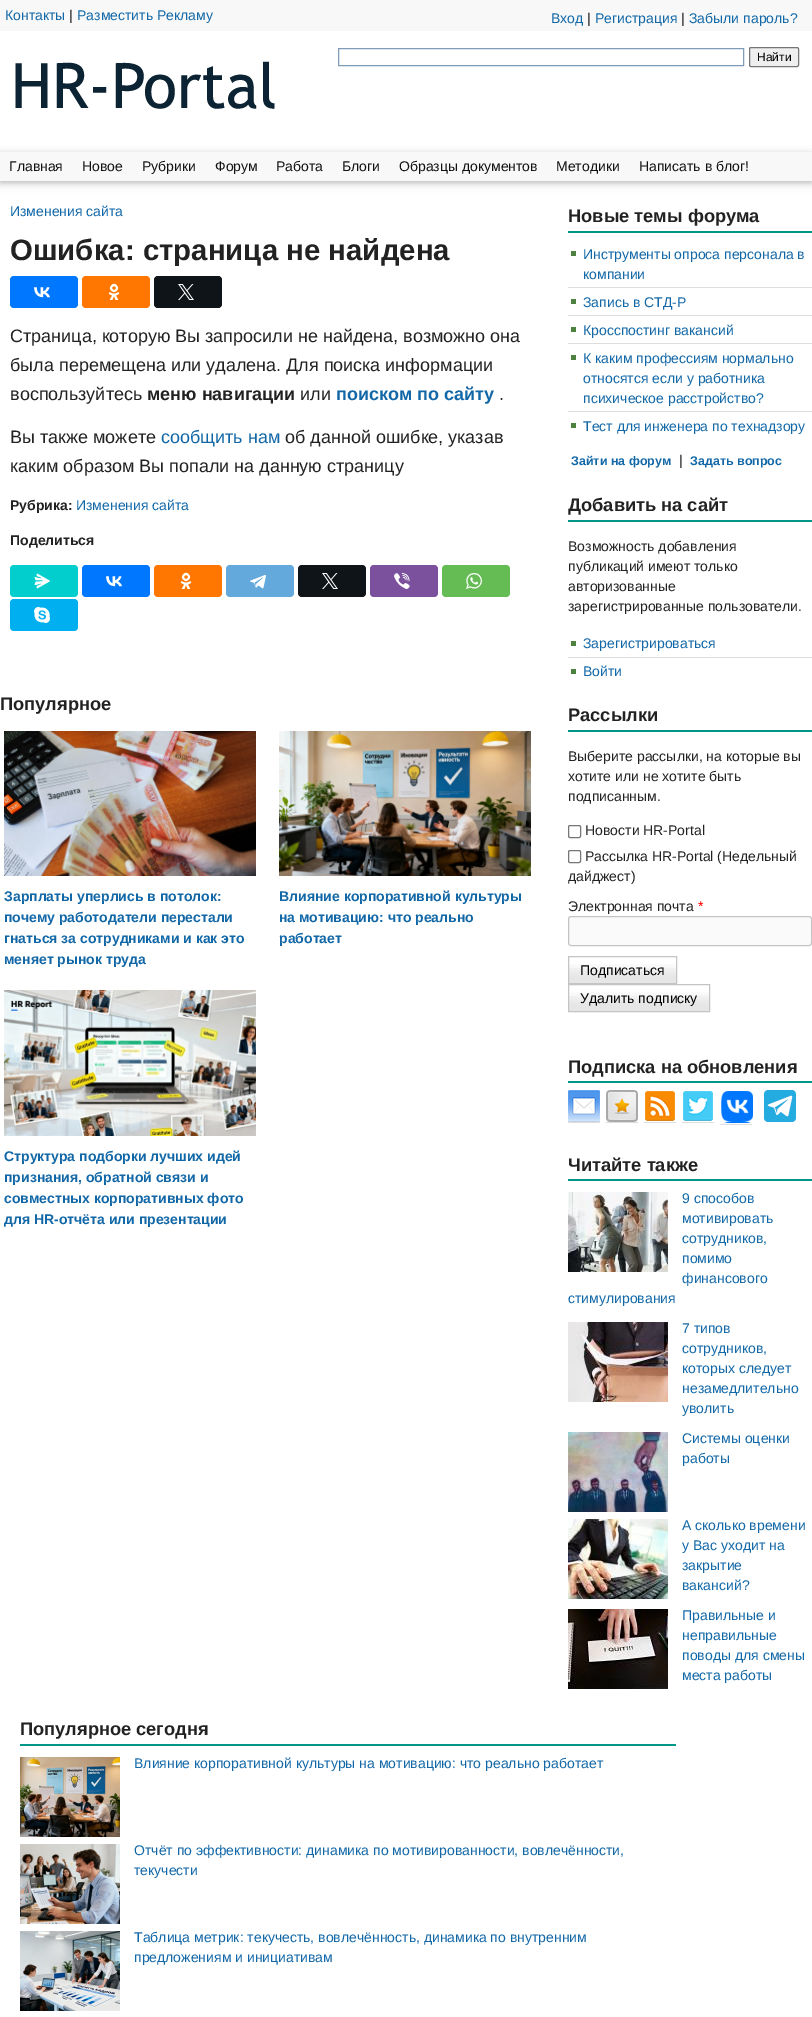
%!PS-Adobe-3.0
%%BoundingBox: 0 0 812 2017
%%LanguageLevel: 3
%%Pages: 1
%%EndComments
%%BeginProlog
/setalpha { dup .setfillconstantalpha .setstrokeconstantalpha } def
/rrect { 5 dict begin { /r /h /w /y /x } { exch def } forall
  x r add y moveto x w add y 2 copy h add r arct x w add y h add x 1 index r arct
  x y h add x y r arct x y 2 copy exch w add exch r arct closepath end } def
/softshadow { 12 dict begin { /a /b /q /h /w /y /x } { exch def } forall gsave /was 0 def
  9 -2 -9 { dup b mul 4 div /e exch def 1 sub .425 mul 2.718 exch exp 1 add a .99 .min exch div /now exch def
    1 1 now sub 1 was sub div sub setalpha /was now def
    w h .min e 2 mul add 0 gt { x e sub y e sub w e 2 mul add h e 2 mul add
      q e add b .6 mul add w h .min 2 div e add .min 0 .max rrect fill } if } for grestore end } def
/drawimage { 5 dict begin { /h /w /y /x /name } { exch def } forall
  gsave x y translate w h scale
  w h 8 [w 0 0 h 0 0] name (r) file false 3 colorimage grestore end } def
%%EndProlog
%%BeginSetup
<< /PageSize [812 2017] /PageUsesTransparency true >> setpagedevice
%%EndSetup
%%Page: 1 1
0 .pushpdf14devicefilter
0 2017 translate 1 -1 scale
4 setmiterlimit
1 setgray
0 0 812 2017 rectfill
0.973 setgray
0 0 812 31 rectfill
0.498 0.616 0.725 setrgbcolor
338.5 48.5 405 17 rectstroke
0.937 setgray
749.5 47.5 49 19 1.5 rrect gsave fill grestore
0.463 setgray
stroke
(images/1.raw) 15 61 260 48 drawimage
0 setgray
0 154 812 29 0 5 0.12 softshadow
0 154 812 29 0 2.5 0.16 softshadow
0.973 setgray
0 152 812 29 rectfill
0 0.467 1 setrgbcolor
10 276 68 32 4 rrect fill
(images/2.raw) 34 287 16 11 drawimage
1 0.467 0 setrgbcolor
82 276 68 32 4 rrect fill
(images/3.raw) 108 283 12 17 drawimage
0.059 0.078 0.098 setrgbcolor
154 276 68 32 4 rrect fill
(images/4.raw) 178 284 16 16 drawimage
0.012 0.808 0.808 setrgbcolor
10 565 68 32 4 rrect fill
(images/5.raw) 34 573 16 16 drawimage
0 0.467 1 setrgbcolor
82 565 68 32 4 rrect fill
(images/2.raw) 106 576 16 11 drawimage
1 0.467 0 setrgbcolor
154 565 68 32 4 rrect fill
(images/3.raw) 180 572 12 17 drawimage
0.392 0.663 0.863 setrgbcolor
226 565 68 32 4 rrect fill
(images/6.raw) 250 575 16 14 drawimage
0.059 0.078 0.098 setrgbcolor
298 565 68 32 4 rrect fill
(images/4.raw) 322 573 16 16 drawimage
0.482 0.318 0.616 setrgbcolor
370 565 68 32 4 rrect fill
(images/7.raw) 394 573 16 16 drawimage
0.396 0.737 0.329 setrgbcolor
442 565 68 32 4 rrect fill
(images/8.raw) 466 573 16 16 drawimage
0 0.686 0.941 setrgbcolor
10 599 68 32 4 rrect fill
(images/9.raw) 34 607 16 16 drawimage
(images/10.raw) 4 731 252 145 drawimage
(images/11.raw) 279 731 252 145 drawimage
(images/12.raw) 4 990 252 146 drawimage
0 0.588 0.533 setrgbcolor
568 231 244 2 rectfill
0.298 0.51 0.239 setrgbcolor
571 251 5 5 rectfill
0.867 setgray
568 287 244 1 rectfill
0.298 0.51 0.239 setrgbcolor
571 299 5 5 rectfill
0.867 setgray
568 315 244 1 rectfill
0.298 0.51 0.239 setrgbcolor
571 327 5 5 rectfill
0.867 setgray
568 343 244 1 rectfill
0.298 0.51 0.239 setrgbcolor
571 355 5 5 rectfill
0.867 setgray
568 411 244 1 rectfill
0.298 0.51 0.239 setrgbcolor
571 423 5 5 rectfill
0 0.588 0.533 setrgbcolor
568 520 244 2 rectfill
0.298 0.51 0.239 setrgbcolor
571 641 5 5 rectfill
0.867 setgray
568 657 244 1 rectfill
0.298 0.51 0.239 setrgbcolor
571 669 5 5 rectfill
0 0.588 0.533 setrgbcolor
568 730 244 2 rectfill
0.463 setgray
568.5 825.5 12 12 1.5 rrect stroke
568.5 850.5 12 12 1.5 rrect stroke
0.98 setgray
568.5 916.5 243 29 2.5 rrect gsave fill grestore
0.769 setgray
stroke
(images/13.raw) 569 964 107 19 drawimage
568.5 956.5 108 27 rectstroke
(images/14.raw) 569 992 140 19 drawimage
568.5 984.5 141 27 rectstroke
0 0.588 0.533 setrgbcolor
568 1081 244 2 rectfill
0.867 setgray
568 1122 32 1 rectfill
(images/15.raw) 568 1090 32 32 drawimage
606 1122 32 1 rectfill
(images/16.raw) 606 1090 32 32 drawimage
644 1122 32 1 rectfill
(images/17.raw) 645 1091 30 30 drawimage
682 1122 32 1 rectfill
(images/18.raw) 683 1091 30 30 drawimage
720 1124 32 1 rectfill
(images/19.raw) 721 1091 32 32 drawimage
(images/20.raw) 764 1090 32 32 drawimage
0 0.588 0.533 setrgbcolor
568 1179 244 2 rectfill
(images/21.raw) 568 1192 100 80 drawimage
(images/22.raw) 568 1322 100 80 drawimage
(images/23.raw) 568 1432 100 80 drawimage
(images/24.raw) 568 1519 100 80 drawimage
(images/25.raw) 568 1609 100 80 drawimage
20 1744 656 2 rectfill
(images/26.raw) 20 1757 100 80 drawimage
(images/27.raw) 20 1844 100 80 drawimage
(images/28.raw) 20 1931 100 80 drawimage
/LiberationSans-Regular [14 0 0 -14 0 0] selectfont
0.071 0.408 0.655 setrgbcolor
5 20 moveto (Контакты) show
0.133 setgray
69 20 moveto (|) show
0.071 0.408 0.655 setrgbcolor
77 20 moveto (Разместить Рекламу) show
551 23 moveto (Вход) show
0.133 setgray
587 23 moveto (|) show
0.071 0.408 0.655 setrgbcolor
595 23 moveto (Регистрация) show
0.133 setgray
681 23 moveto (|) show
0.071 0.408 0.655 setrgbcolor
689 23 moveto (Забыли пароль?) show
/LiberationSans-Regular [12 0 0 -12 0 0] selectfont
0 setgray
757 61 moveto (Найти) show
/LiberationSans-Regular [14 0 0 -14 0 0] selectfont
0.067 setgray
9 171 moveto (Главная) show
82 171 moveto (Новое) show
142 171 moveto (Рубрики) show
215 171 moveto (Форум) show
276 171 moveto (Работа) show
342 171 moveto (Блоги) show
399 171 moveto (Образцы документов) show
556 171 moveto (Методики) show
639 171 moveto (Написать в блог!) show
0.071 0.408 0.655 setrgbcolor
10 216 moveto (Изменения сайта) show
/LiberationSans-Bold [29.4 0 0 -29.4 0 0] selectfont
0.133 setgray
10 260 moveto (Ошибка: страница не найдена) show
/LiberationSans-Regular [18 0 0 -18 0 0] selectfont
10 342 moveto (Страница, которую Вы запросили не найдена, возможно она) show
10 371 moveto (была перемещена или удалена. Для поиска информации) show
10 400 moveto (воспользуйтесь) show
/LiberationSans-Bold [18 0 0 -18 0 0] selectfont
147 400 moveto (меню навигации) show
/LiberationSans-Regular [18 0 0 -18 0 0] selectfont
300 400 moveto (или) show
/LiberationSans-Bold [18 0 0 -18 0 0] selectfont
0.071 0.408 0.655 setrgbcolor
336 400 moveto (поиском по сайту) show
/LiberationSans-Regular [18 0 0 -18 0 0] selectfont
0.133 setgray
499 400 moveto (.) show
10 443 moveto (Вы также можете) show
0.071 0.408 0.655 setrgbcolor
161 443 moveto (сообщить нам) show
0.133 setgray
285 443 moveto (об данной ошибке, указав) show
10 472 moveto (каким образом Вы попали на данную страницу) show
/LiberationSans-Bold [14 0 0 -14 0 0] selectfont
10 510 moveto (Рубрика:) show
/LiberationSans-Regular [14 0 0 -14 0 0] selectfont
0.071 0.408 0.655 setrgbcolor
76 510 moveto (Изменения сайта) show
/LiberationSans-Bold [14 0 0 -14 0 0] selectfont
0.133 setgray
10 545 moveto (Поделиться) show
/LiberationSans-Bold [18.25 0 0 -18.25 0 0] selectfont
0 710 moveto (Популярное) show
/LiberationSans-Bold [14 0 0 -14 0 0] selectfont
0.071 0.408 0.655 setrgbcolor
4 901 moveto (Зарплаты уперлись в потолок:) show
4 922 moveto (почему работодатели перестали) show
4 943 moveto (гнаться за сотрудниками и как это) show
4 964 moveto (меняет рынок труда) show
279 901 moveto (Влияние корпоративной культуры) show
279 922 moveto (на мотивацию: что реально) show
279 943 moveto (работает) show
4 1161 moveto (Структура подборки лучших идей) show
4 1182 moveto (признания, обратной связи и) show
4 1203 moveto (совместных корпоративных фото) show
4 1224 moveto (для HR-отчёта или презентации) show
/LiberationSans-Bold [18.25 0 0 -18.25 0 0] selectfont
0.133 setgray
568 222 moveto (Новые темы форума) show
/LiberationSans-Regular [14 0 0 -14 0 0] selectfont
0.071 0.408 0.655 setrgbcolor
583 259 moveto (Инструменты опроса персонала в) show
583 279 moveto (компании) show
583 307 moveto (Запись в СТД-Р) show
583 335 moveto (Кросспостинг вакансий) show
583 363 moveto (К каким профессиям нормально) show
583 383 moveto (относятся если у работника) show
583 403 moveto (психическое расстройство?) show
583 431 moveto (Тест для инженера по технадзору) show
/LiberationSans-Bold [12.5 0 0 -12.5 0 0] selectfont
571 465 moveto (Зайти на форум) show
/LiberationSans-Regular [14 0 0 -14 0 0] selectfont
0.133 setgray
679 465 moveto (|) show
/LiberationSans-Bold [12.5 0 0 -12.5 0 0] selectfont
0.071 0.408 0.655 setrgbcolor
690 465 moveto (Задать вопрос) show
/LiberationSans-Bold [18.25 0 0 -18.25 0 0] selectfont
0.133 setgray
568 511 moveto (Добавить на сайт) show
/LiberationSans-Regular [14 0 0 -14 0 0] selectfont
568 551 moveto (Возможность добавления) show
568 571 moveto (публикаций имеют только) show
568 591 moveto (авторизованные) show
568 611 moveto (зарегистрированные пользователи.) show
0.071 0.408 0.655 setrgbcolor
583 648 moveto (Зарегистрироваться) show
583 676 moveto (Войти) show
/LiberationSans-Bold [18.25 0 0 -18.25 0 0] selectfont
0.133 setgray
568 721 moveto (Рассылки) show
/LiberationSans-Regular [14 0 0 -14 0 0] selectfont
568 761 moveto (Выберите рассылки, на которые вы) show
568 781 moveto (хотите или не хотите быть) show
568 801 moveto (подписанным.) show
585 835 moveto (Новости HR-Portal) show
585 861 moveto (Рассылка HR-Portal \(Недельный) show
568 881 moveto (дайджест\)) show
568 911 moveto (Электронная почта) show
1 0 0 setrgbcolor
698 911 moveto (*) show
0 setgray
580 975 moveto (Подписаться) show
580 1003 moveto (Удалить подписку) show
/LiberationSans-Bold [18.25 0 0 -18.25 0 0] selectfont
0.133 setgray
568 1073 moveto (Подписка на обновления) show
568 1171 moveto (Читайте также) show
/LiberationSans-Regular [14 0 0 -14 0 0] selectfont
0.071 0.408 0.655 setrgbcolor
682 1203 moveto (9 способов) show
682 1223 moveto (мотивировать) show
682 1243 moveto (сотрудников,) show
682 1263 moveto (помимо) show
682 1283 moveto (финансового) show
568 1303 moveto (стимулирования) show
682 1333 moveto (7 типов) show
682 1353 moveto (сотрудников,) show
682 1373 moveto (которых следует) show
682 1393 moveto (незамедлительно) show
682 1413 moveto (уволить) show
682 1443 moveto (Системы оценки) show
682 1463 moveto (работы) show
682 1530 moveto (А сколько времени) show
682 1550 moveto (у Вас уходит на) show
682 1570 moveto (закрытие) show
682 1590 moveto (вакансий?) show
682 1620 moveto (Правильные и) show
682 1640 moveto (неправильные) show
682 1660 moveto (поводы для смены) show
682 1680 moveto (места работы) show
/LiberationSans-Bold [18.25 0 0 -18.25 0 0] selectfont
0.133 setgray
20 1735 moveto (Популярное сегодня) show
/LiberationSans-Regular [14 0 0 -14 0 0] selectfont
0.071 0.408 0.655 setrgbcolor
134 1768 moveto (Влияние корпоративной культуры на мотивацию: что реально работает) show
134 1855 moveto (Отчёт по эффективности: динамика по мотивированности, вовлечённости,) show
134 1875 moveto (текучести) show
134 1942 moveto (Таблица метрик: текучесть, вовлечённость, динамика по внутренним) show
134 1962 moveto (предложениям и инициативам) show
.poppdf14devicefilter showpage
%%EOF
